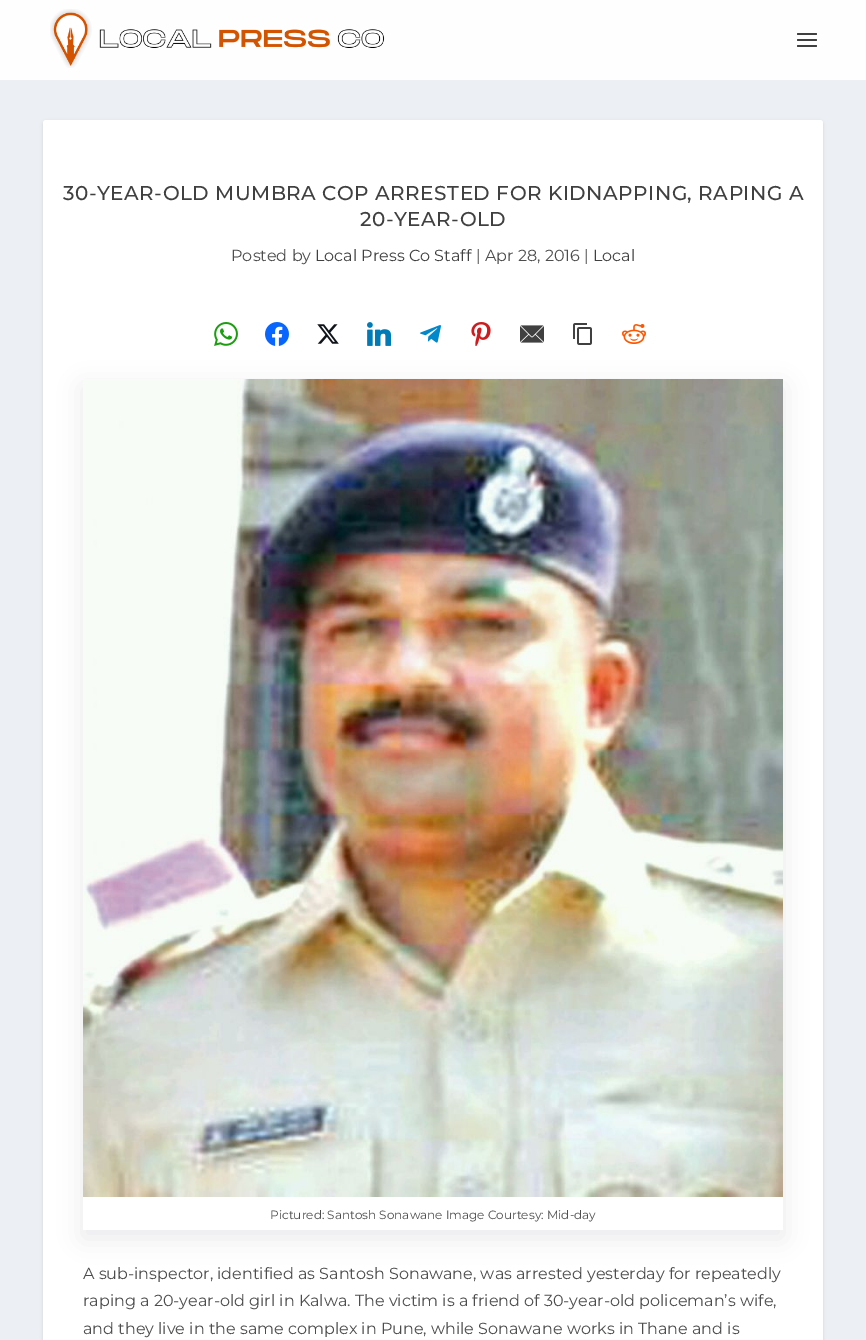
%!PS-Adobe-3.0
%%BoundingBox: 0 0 866 1340
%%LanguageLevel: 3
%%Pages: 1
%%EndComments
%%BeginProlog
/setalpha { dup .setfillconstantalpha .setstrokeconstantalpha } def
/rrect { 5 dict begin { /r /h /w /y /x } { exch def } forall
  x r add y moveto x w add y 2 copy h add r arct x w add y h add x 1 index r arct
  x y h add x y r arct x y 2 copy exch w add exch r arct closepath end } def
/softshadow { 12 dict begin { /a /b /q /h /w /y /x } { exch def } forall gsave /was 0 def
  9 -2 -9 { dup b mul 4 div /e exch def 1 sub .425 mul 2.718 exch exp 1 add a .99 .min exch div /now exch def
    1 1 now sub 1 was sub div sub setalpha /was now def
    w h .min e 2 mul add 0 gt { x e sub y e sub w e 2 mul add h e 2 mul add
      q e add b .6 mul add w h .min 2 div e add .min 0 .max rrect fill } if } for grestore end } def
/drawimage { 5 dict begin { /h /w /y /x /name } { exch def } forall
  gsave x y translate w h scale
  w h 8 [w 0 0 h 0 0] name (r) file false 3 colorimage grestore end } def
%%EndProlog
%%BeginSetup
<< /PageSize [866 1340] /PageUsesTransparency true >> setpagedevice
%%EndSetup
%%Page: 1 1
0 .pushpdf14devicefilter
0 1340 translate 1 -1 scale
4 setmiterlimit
0.925 0.941 0.961 setrgbcolor
0 0 866 1340 rectfill
0.996 setgray
0 0 866 80 rectfill
(images/1.raw) 50 9 335 59 drawimage
0.251 setgray
797 33 20 2 1 rrect fill
797 39 20 2 1 rrect fill
797 45 20 2 1 rrect fill
0 setgray
43 121 780 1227 3 1.5 0.1 softshadow
1 setgray
43 120 780 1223 3 rrect fill
(images/2.raw) 214 322 24 24 drawimage
(images/3.raw) 265 322 24 24 drawimage
(images/4.raw) 317 324 22 20 drawimage
(images/5.raw) 367 322 24 24 drawimage
(images/6.raw) 420 325 21 18 drawimage
(images/7.raw) 471 322 20 24 drawimage
(images/8.raw) 520 325 24 18 drawimage
(images/9.raw) 573 323 19 22 drawimage
(images/10.raw) 622 324 24 20 drawimage
gsave
newpath 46 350 moveto 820 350 lineto 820 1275 lineto 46 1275 lineto closepath 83 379 moveto 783 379 lineto 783 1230 lineto 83 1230 lineto closepath eoclip newpath
0.584 0.616 0.647 setrgbcolor
83 387 700 851 0 12 0.2 softshadow
grestore
(images/11.raw) 83 379 700 818 drawimage
/Montserrat-Medium [20 0 0 -20 0 0] selectfont
0.251 setgray
63 200 moveto 0.5 0 (30-YEAR-OLD MUMBRA COP ARRESTED FOR KIDNAPPING, RAPING A) ashow
360 226 moveto 0.5 0 (20-YEAR-OLD) ashow
/Montserrat-Regular [16 0 0 -16 0 0] selectfont
0.302 setgray
231 261 moveto (Posted by) show
0.251 setgray
315 261 moveto (Local Press Co Staff) show
0.302 setgray
476 261 moveto (| Apr 28, 2016 |) show
0.251 setgray
593 261 moveto (Local) show
/Montserrat-Regular [12 0 0 -12 0 0] selectfont
0.302 setgray
270 1219 moveto (Pictured: Santosh Sonawane Image Courtesy: Mid-day) show
/Montserrat-Regular [16 0 0 -16 0 0] selectfont
83 1279 moveto (A sub-inspector, identified as Santosh Sonawane, was arrested yesterday for repeatedly) show
83 1306 moveto (raping a 20-year-old girl in Kalwa. The victim is a friend of 30-year-old policeman’s wife,) show
83 1334 moveto (and they live in the same complex in Pune, while Sonawane works in Thane and is) show
.poppdf14devicefilter showpage
%%EOF
